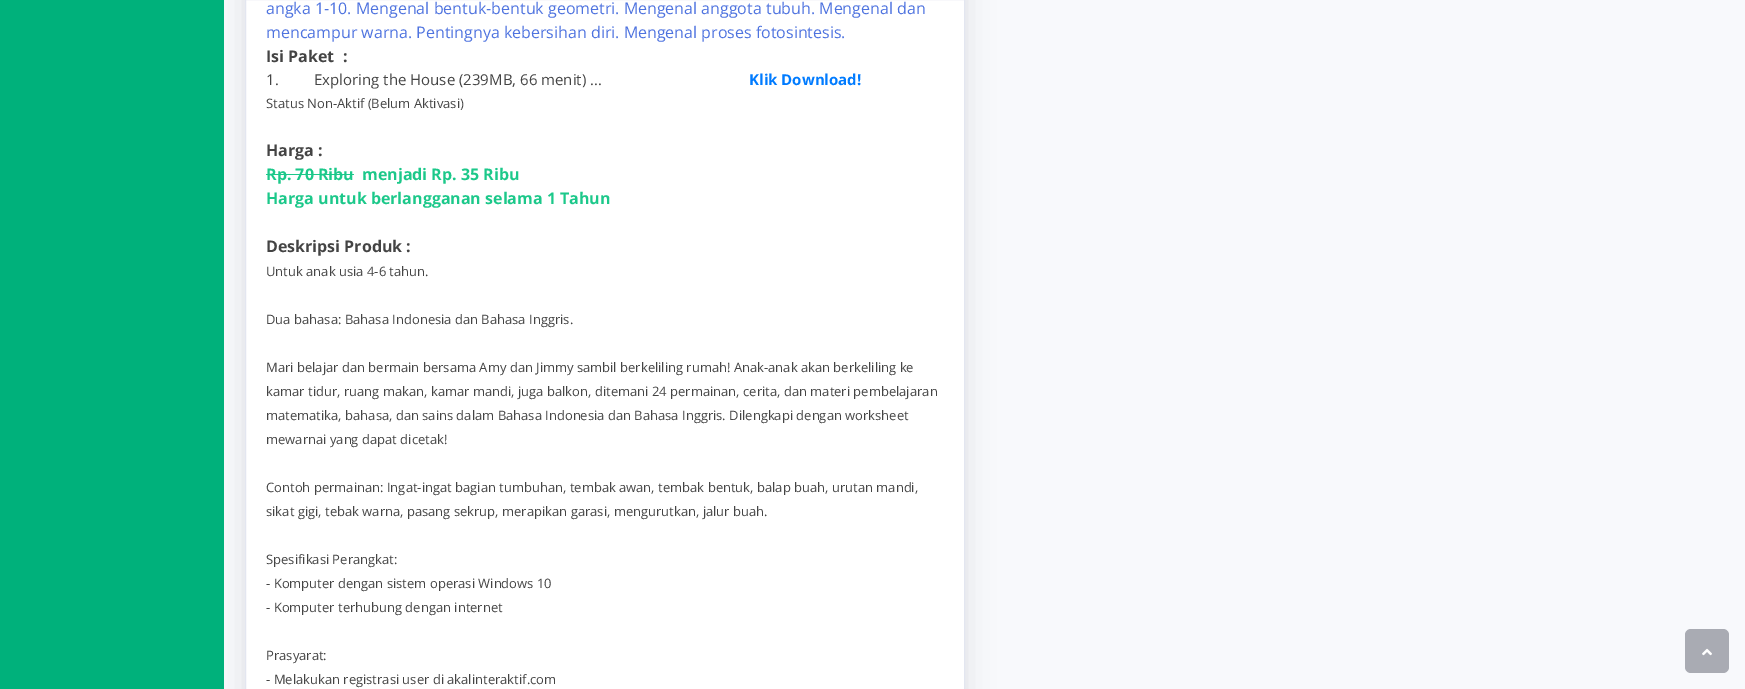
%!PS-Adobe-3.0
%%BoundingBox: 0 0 1745 689
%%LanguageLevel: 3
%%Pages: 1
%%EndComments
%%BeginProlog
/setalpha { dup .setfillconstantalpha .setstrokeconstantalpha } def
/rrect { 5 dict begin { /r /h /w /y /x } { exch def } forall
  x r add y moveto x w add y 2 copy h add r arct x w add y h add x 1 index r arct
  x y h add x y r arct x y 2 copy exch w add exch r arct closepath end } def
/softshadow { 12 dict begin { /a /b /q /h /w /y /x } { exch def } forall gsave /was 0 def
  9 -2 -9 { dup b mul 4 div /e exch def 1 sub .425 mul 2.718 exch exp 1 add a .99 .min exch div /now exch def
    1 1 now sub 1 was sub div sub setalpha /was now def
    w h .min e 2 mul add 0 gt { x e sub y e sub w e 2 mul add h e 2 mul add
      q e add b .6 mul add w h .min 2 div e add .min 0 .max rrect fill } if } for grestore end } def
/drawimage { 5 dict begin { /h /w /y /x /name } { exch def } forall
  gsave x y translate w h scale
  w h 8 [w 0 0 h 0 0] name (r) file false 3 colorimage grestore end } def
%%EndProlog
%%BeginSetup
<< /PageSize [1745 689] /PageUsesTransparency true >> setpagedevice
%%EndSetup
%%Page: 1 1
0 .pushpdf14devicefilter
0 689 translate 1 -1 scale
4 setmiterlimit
0 0.694 0.482 setrgbcolor
0 0 1745 689 rectfill
0.973 0.976 0.988 setrgbcolor
224 0 1521 689 rectfill
0.227 0.231 0.271 setrgbcolor
245 -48 720 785 6 14 0.15 softshadow
1 setgray
newpath 245.5 -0.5 moveto 964.5 -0.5 lineto 964.5 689.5 lineto 245.5 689.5 lineto closepath gsave fill grestore
0.89 0.902 0.941 setrgbcolor
stroke
0.11 0.784 0.541 setrgbcolor
266 174 88 1 rectfill
0.663 0.671 0.702 setrgbcolor
1685 629 44 44 6 rrect fill
(images/1.raw) 1702 648 10 8 drawimage
/OpenSans-Regular [16 0 0 -16 0 0] selectfont
0.306 0.451 0.875 setrgbcolor
266 14 moveto (angka 1-10. Mengenal bentuk-bentuk geometri. Mengenal anggota tubuh. Mengenal dan) show
266 38 moveto (mencampur warna. Pentingnya kebersihan diri. Mengenal proses fotosintesis.) show
/OpenSans-Bold [16 0 0 -16 0 0] selectfont
0.267 setgray
266 62 moveto (Isi Paket  :) show
/OpenSans-Regular [15 0 0 -15 0 0] selectfont
266 85 moveto (1.) show
314 85 moveto (Exploring the House \(239MB, 66 menit\) ...) show
/OpenSans-Bold [15 0 0 -15 0 0] selectfont
0 0.482 1 setrgbcolor
749 85 moveto (Klik Download!) show
/OpenSans-Regular [13 0 0 -13 0 0] selectfont
0.267 setgray
266 108 moveto (Status Non-Aktif \(Belum Aktivasi\)) show
/OpenSans-Bold [16 0 0 -16 0 0] selectfont
266 156 moveto (Harga :) show
0.11 0.784 0.541 setrgbcolor
266 180 moveto (Rp. 70 Ribu) show
362 180 moveto (menjadi Rp. 35 Ribu) show
266 204 moveto (Harga untuk berlangganan selama 1 Tahun) show
0.267 setgray
266 252 moveto (Deskripsi Produk :) show
/OpenSans-Regular [13 0 0 -13 0 0] selectfont
266 276 moveto (Untuk anak usia 4-6 tahun.) show
266 324 moveto (Dua bahasa: Bahasa Indonesia dan Bahasa Inggris.) show
266 372 moveto (Mari belajar dan bermain bersama Amy dan Jimmy sambil berkeliling rumah! Anak-anak akan berkeliling ke) show
266 396 moveto (kamar tidur, ruang makan, kamar mandi, juga balkon, ditemani 24 permainan, cerita, dan materi pembelajaran) show
266 420 moveto (matematika, bahasa, dan sains dalam Bahasa Indonesia dan Bahasa Inggris. Dilengkapi dengan worksheet) show
266 444 moveto (mewarnai yang dapat dicetak!) show
266 492 moveto (Contoh permainan: Ingat-ingat bagian tumbuhan, tembak awan, tembak bentuk, balap buah, urutan mandi,) show
266 516 moveto (sikat gigi, tebak warna, pasang sekrup, merapikan garasi, mengurutkan, jalur buah.) show
266 564 moveto (Spesifikasi Perangkat:) show
266 588 moveto (- Komputer dengan sistem operasi Windows 10) show
266 612 moveto (- Komputer terhubung dengan internet) show
266 660 moveto (Prasyarat:) show
266 684 moveto (- Melakukan registrasi user di akalinteraktif.com) show
.poppdf14devicefilter showpage
%%EOF
